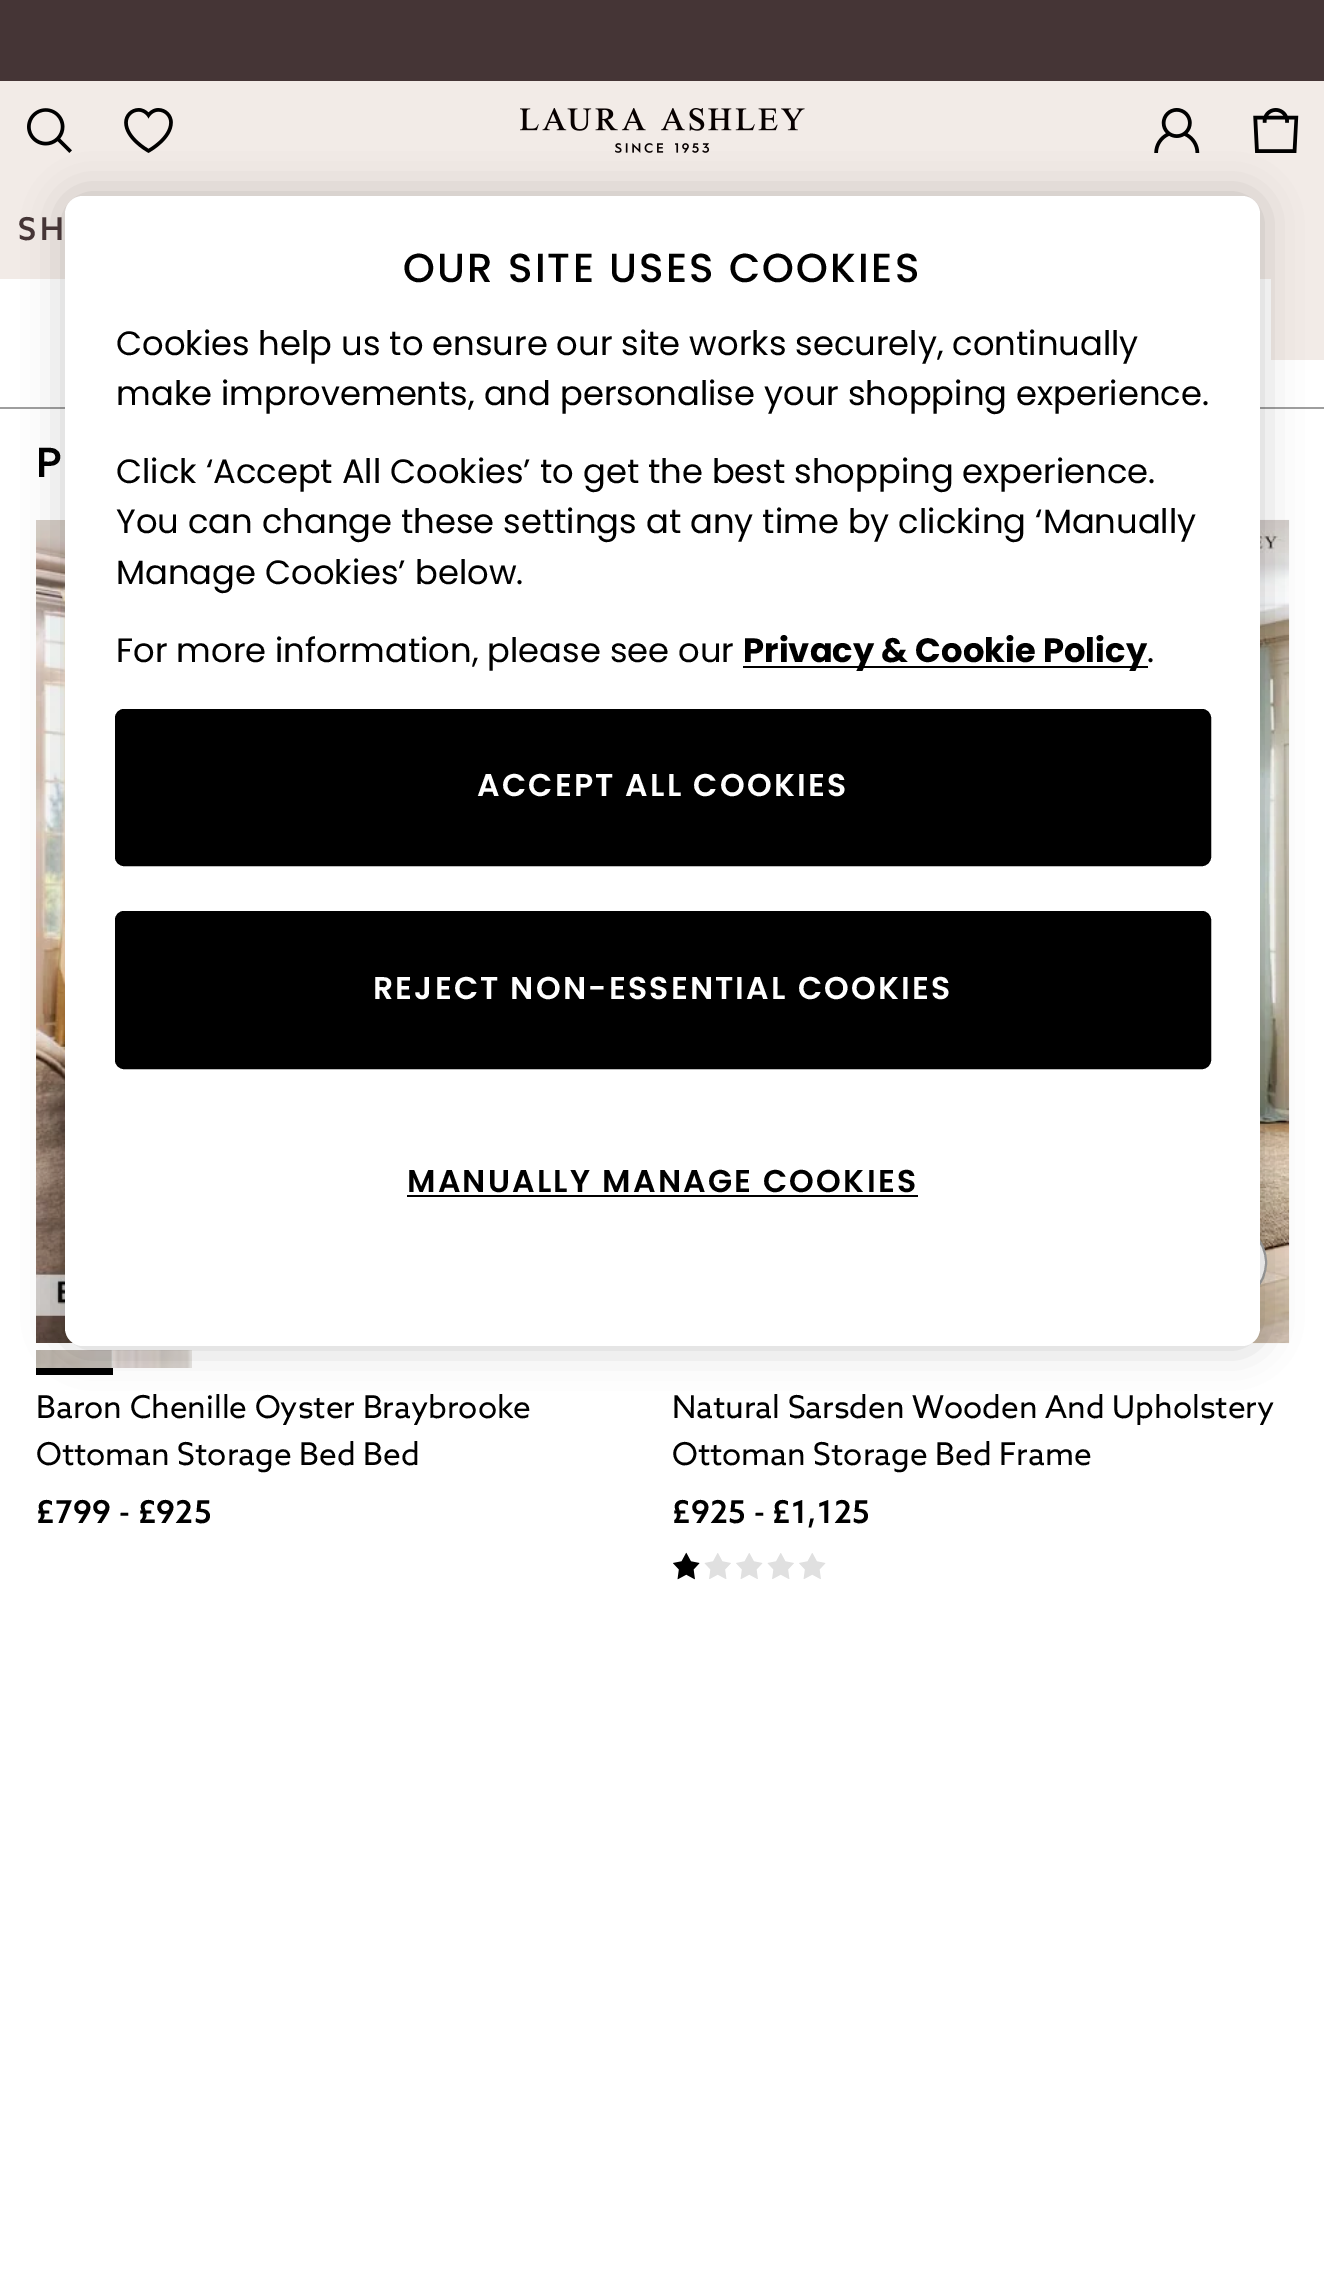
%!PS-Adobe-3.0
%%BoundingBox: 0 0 1324 2291
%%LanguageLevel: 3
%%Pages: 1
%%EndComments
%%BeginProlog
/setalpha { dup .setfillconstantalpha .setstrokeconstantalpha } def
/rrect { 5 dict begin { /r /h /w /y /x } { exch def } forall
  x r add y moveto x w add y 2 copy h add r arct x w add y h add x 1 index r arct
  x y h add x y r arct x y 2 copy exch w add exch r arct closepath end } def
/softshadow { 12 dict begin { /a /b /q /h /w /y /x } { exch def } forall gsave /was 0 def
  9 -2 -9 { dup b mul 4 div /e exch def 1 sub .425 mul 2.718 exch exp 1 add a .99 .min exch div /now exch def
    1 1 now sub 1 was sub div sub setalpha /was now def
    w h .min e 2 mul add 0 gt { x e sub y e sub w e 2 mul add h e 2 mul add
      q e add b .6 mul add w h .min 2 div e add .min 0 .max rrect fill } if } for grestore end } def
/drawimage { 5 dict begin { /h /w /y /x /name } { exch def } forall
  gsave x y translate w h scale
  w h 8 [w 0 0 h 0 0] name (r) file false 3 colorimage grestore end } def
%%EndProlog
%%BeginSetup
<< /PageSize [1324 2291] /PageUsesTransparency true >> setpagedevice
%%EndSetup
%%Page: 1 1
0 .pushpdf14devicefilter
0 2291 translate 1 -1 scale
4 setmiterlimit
1 setgray
0 0 1324 2291 rectfill
0.949 0.922 0.906 setrgbcolor
0 81 1324 99 rectfill
0.271 0.208 0.212 setrgbcolor
0 0 1324 81 rectfill
(images/1.raw) 27 108 45 45 drawimage
(images/2.raw) 124 108 49 45 drawimage
(images/3.raw) 520 108 285 45 drawimage
(images/4.raw) 1154 108 46 45 drawimage
(images/5.raw) 1253 108 46 45 drawimage
0.949 0.922 0.906 setrgbcolor
0 180 1271 99 rectfill
1271 180 53 180 rectfill
0.62 setgray
0 407 1324 2 rectfill
(images/6.raw) 36 520 37 823 drawimage
0 setgray
36 1368 77 7 rectfill
(images/7.raw) 36 1350 78 18 drawimage
(images/8.raw) 113 1350 79 18 drawimage
(images/9.raw) 1250 519 40 825 drawimage
1 setgray
newpath 1226.5 1262.5 39.5 0 360 arc closepath gsave fill grestore
0.62 setgray
2 setlinewidth
stroke
0 setgray
65 196 1195 1150 18 20 0.2 softshadow
1 setgray
65 196 1195 1150 18 rrect fill
0 setgray
743 666 405 2 rectfill
116 710 1094 155 8 rrect gsave fill grestore
stroke
116 912 1094 156 8 rrect gsave fill grestore
stroke
407 1195 511 2 rectfill
(images/10.raw) 673 1552 27 28 drawimage
(images/11.raw) 704 1553 27 26 drawimage
(images/12.raw) 736 1553 27 26 drawimage
(images/11.raw) 767 1553 27 26 drawimage
(images/12.raw) 799 1553 27 26 drawimage
/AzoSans-SemiBold [31.5 0 0 -31.5 0 0] selectfont
0.271 0.208 0.212 setrgbcolor
18 240 moveto 4 0 (SH) ashow
/Poppins-Medium [40.5 0 0 -40.5 0 0] selectfont
0 setgray
403 282 moveto 2.25 0 (OUR SITE USES COOKIES) ashow
/Poppins-Regular [33.75 0 0 -33.75 0 0] selectfont
116 355 moveto (Cookies help us to ensure our site works securely, continually) show
116 405 moveto (make improvements, and personalise your shopping experience.) show
116 483 moveto (Click ‘Accept All Cookies’ to get the best shopping experience.) show
116 533 moveto (You can change these settings at any time by clicking ‘Manually) show
116 584 moveto (Manage Cookies’ below.) show
116 662 moveto (For more information, please see our) show
/Poppins-Bold [33.75 0 0 -33.75 0 0] selectfont
743 662 moveto (Privacy & Cookie Policy) show
/Poppins-Regular [33.75 0 0 -33.75 0 0] selectfont
1147 662 moveto (.) show
/Poppins-SemiBold [31.5 0 0 -31.5 0 0] selectfont
1 setgray
477 796 moveto 2.25 0 (ACCEPT ALL COOKIES) ashow
373 999 moveto 2.25 0 (REJECT NON-ESSENTIAL COOKIES) ashow
0 setgray
407 1192 moveto 2.25 0 (MANUALLY MANAGE COOKIES) ashow
/AzoSans-SemiBold [40.5 0 0 -40.5 0 0] selectfont
36 477 moveto 0.25 0 (P) ashow
/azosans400-Regular [31.5 0 0 -31.5 0 0] selectfont
36 1418 moveto (Baron Chenille Oyster Braybrooke) show
36 1465 moveto (Ottoman Storage Bed Bed) show
/AzoSans-SemiBold [31.5 0 0 -31.5 0 0] selectfont
36 1523 moveto 0.25 0 (£799 - £925) ashow
/azosans400-Regular [31.5 0 0 -31.5 0 0] selectfont
672 1418 moveto (Natural Sarsden Wooden And Upholstery) show
672 1465 moveto (Ottoman Storage Bed Frame) show
/AzoSans-SemiBold [31.5 0 0 -31.5 0 0] selectfont
672 1523 moveto 0.25 0 (£925 - £1,125) ashow
.poppdf14devicefilter showpage
%%EOF
